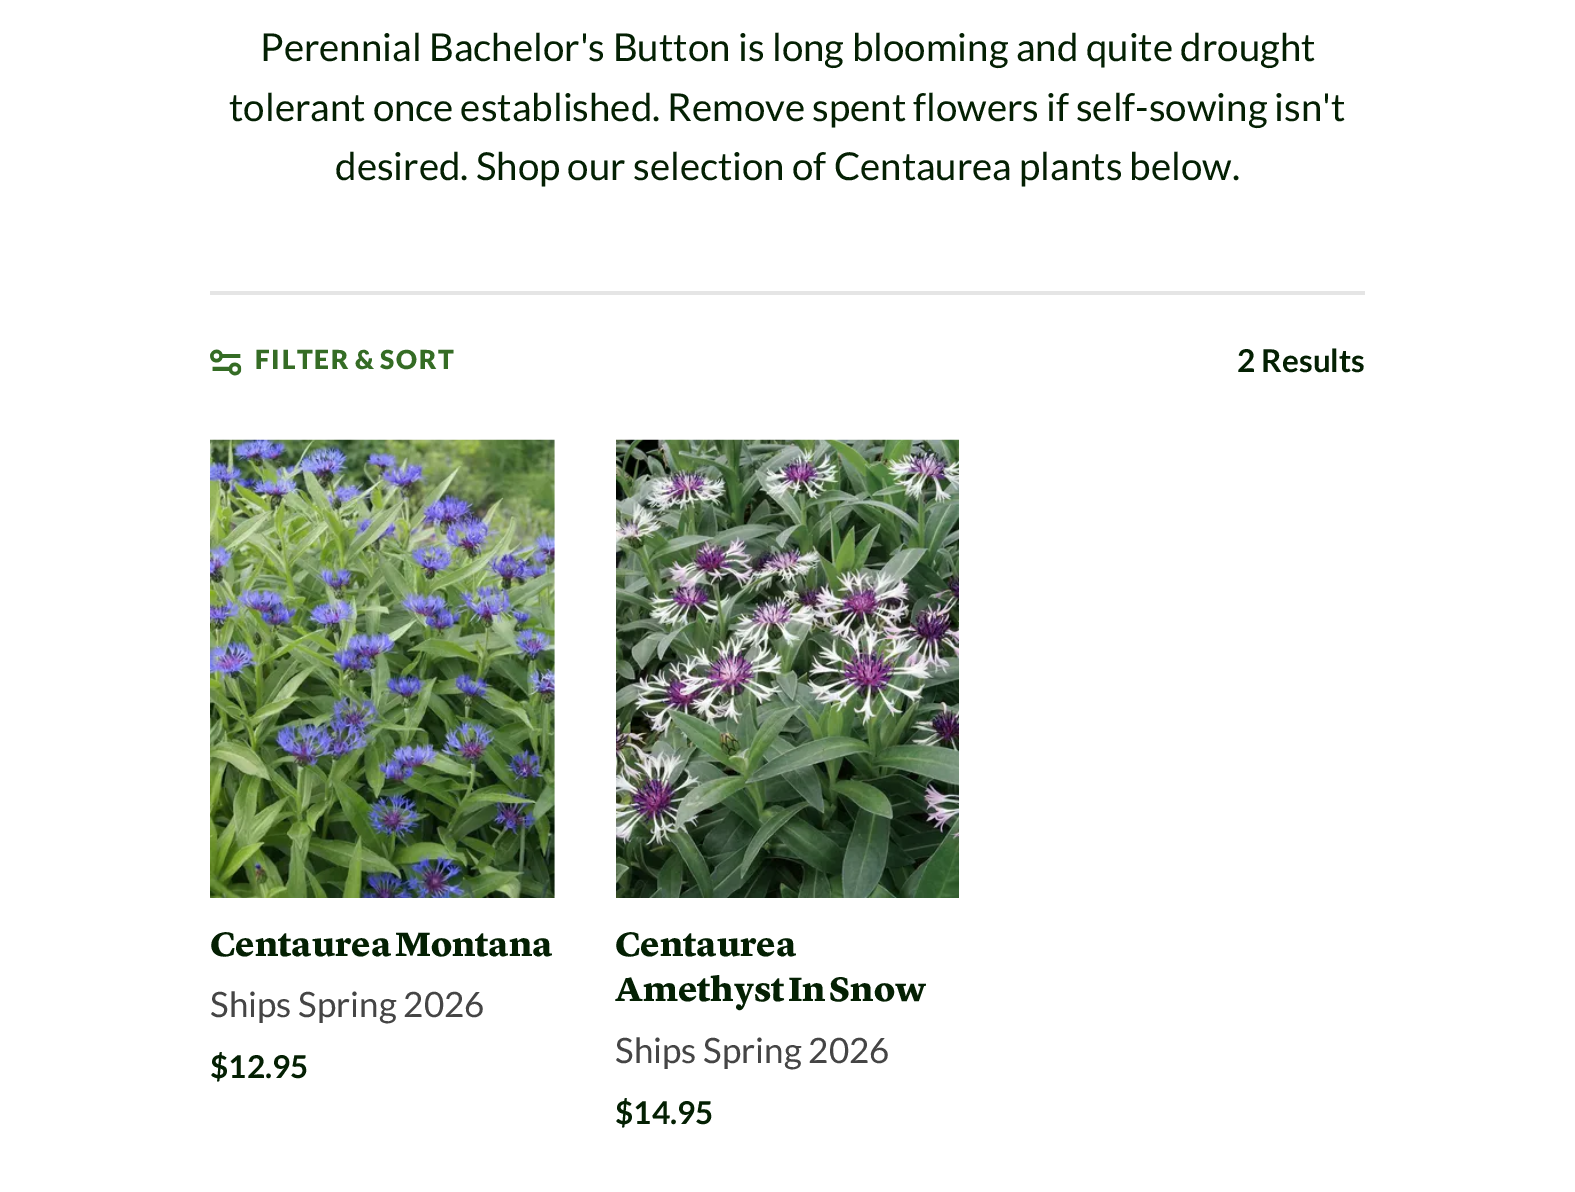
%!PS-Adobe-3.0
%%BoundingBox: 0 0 1575 1192
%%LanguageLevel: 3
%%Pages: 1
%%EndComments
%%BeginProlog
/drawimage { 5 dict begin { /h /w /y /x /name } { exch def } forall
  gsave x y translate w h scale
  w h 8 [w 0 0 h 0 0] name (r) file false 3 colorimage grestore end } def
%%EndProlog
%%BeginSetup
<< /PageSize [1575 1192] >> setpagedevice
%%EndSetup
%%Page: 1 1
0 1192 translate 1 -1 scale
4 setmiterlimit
1 setgray
0 0 1575 1192 rectfill
0.898 setgray
210 291 1155 4 rectfill
(images/1.raw) 210 349 32 27 drawimage
(images/2.raw) 210 439 345 459 drawimage
(images/3.raw) 616 439 343 459 drawimage
/Lato-Regular [38.5 0 0 -38.5 0 0] selectfont
0.016 0.125 0.012 setrgbcolor
260 61 moveto (Perennial Bachelor's Button is long blooming and quite drought) show
229 121 moveto -0.5 0 32 (tolerant once established. Remove spent flowers if self-sowing isn't) widthshow
335 180 moveto -0.25 0 32 (desired. Shop our selection of Centaurea plants below.) widthshow
/Lato-Black [26.25 0 0 -26.25 0 0] selectfont
0.208 0.424 0.145 setrgbcolor
255 369 moveto -2 0 32 1.75 0 (FILTER & SORT) awidthshow
/Lato-Bold [31.5 0 0 -31.5 0 0] selectfont
0.016 0.125 0.012 setrgbcolor
1237 372 moveto (2 Results) show
/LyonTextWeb-Black [35 0 0 -35 0 0] selectfont
210 956 moveto -2 0 32 (Centaurea Montana) widthshow
/Lato-Regular [35 0 0 -35 0 0] selectfont
0.271 setgray
210 1017 moveto (Ships Spring 2026) show
/Lato-Bold [31.5 0 0 -31.5 0 0] selectfont
0.016 0.125 0.012 setrgbcolor
210 1078 moveto ($12.95) show
/LyonTextWeb-Black [35 0 0 -35 0 0] selectfont
615 956 moveto (Centaurea) show
615 1001 moveto -2 0 32 (Amethyst In Snow) widthshow
/Lato-Regular [35 0 0 -35 0 0] selectfont
0.271 setgray
615 1063 moveto (Ships Spring 2026) show
/Lato-Bold [31.5 0 0 -31.5 0 0] selectfont
0.016 0.125 0.012 setrgbcolor
615 1124 moveto ($14.95) show
showpage
%%EOF
